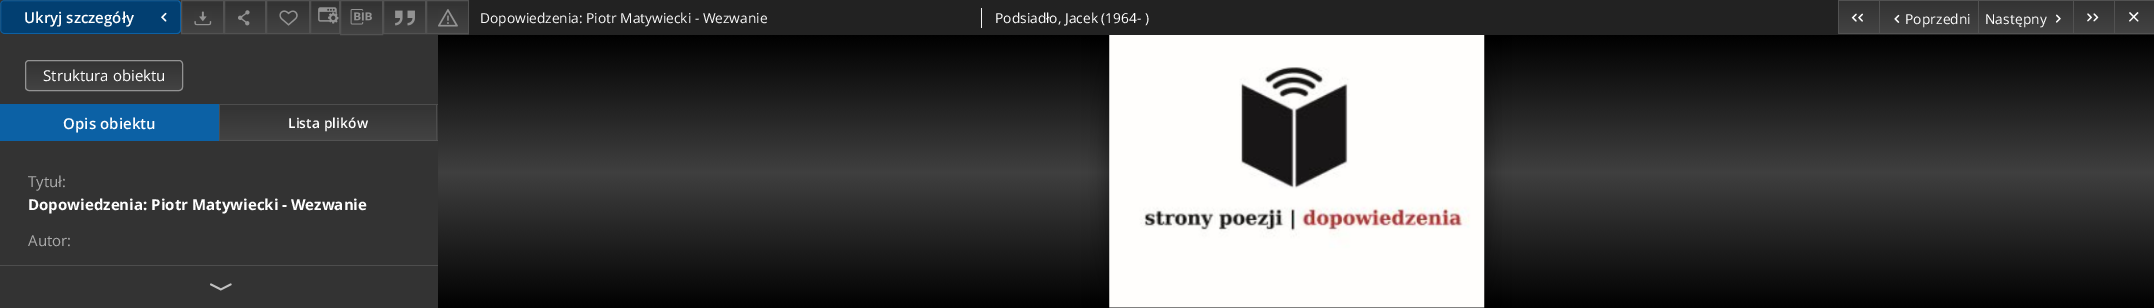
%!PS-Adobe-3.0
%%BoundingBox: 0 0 2154 308
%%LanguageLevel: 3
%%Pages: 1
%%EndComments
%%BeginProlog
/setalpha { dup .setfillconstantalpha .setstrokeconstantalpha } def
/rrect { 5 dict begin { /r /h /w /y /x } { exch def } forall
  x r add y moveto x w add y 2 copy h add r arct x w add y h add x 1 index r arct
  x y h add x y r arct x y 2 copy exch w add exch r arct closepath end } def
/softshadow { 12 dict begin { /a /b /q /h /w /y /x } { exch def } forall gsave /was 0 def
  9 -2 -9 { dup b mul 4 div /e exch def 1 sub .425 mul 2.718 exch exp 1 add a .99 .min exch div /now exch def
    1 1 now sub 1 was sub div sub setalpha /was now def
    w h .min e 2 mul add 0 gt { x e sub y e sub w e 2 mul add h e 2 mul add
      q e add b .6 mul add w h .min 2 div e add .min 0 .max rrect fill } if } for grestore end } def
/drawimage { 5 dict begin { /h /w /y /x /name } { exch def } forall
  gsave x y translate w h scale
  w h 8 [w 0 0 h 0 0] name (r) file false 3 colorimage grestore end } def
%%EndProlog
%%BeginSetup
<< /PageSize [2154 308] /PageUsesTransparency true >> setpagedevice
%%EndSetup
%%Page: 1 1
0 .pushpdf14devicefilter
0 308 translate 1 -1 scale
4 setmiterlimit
0.2 setgray
0 0 2154 308 rectfill
0.008 0.247 0.443 setrgbcolor
0.5 0.5 180 33 3.5 rrect gsave fill grestore
0.047 0.38 0.647 setrgbcolor
stroke
(images/1.raw) 161 12 6 10 drawimage
0.2 setgray
-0.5 -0.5 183 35 4.5 rrect stroke
gsave newpath 182 6 moveto 223 6 lineto 223 33 lineto 182 33 lineto closepath clip newpath
<< /ShadingType 2 /ColorSpace /DeviceRGB /Coords [203 1.2 203 33] /Extend [true true] /Function << /FunctionType 2 /Domain [0 1] /C0 [0.2 0.2 0.2] /C1 [0.263 0.263 0.263] /N 1 >> >> shfill grestore
0.322 setgray
181.5 0.5 42 33 rectstroke
(images/2.raw) 194 11 18 15 drawimage
gsave newpath 225 6 moveto 265 6 lineto 265 33 lineto 225 33 lineto closepath clip newpath
<< /ShadingType 2 /ColorSpace /DeviceRGB /Coords [245 1.2 245 33] /Extend [true true] /Function << /FunctionType 2 /Domain [0 1] /C0 [0.2 0.2 0.2] /C1 [0.263 0.263 0.263] /N 1 >> >> shfill grestore
224.5 0.5 41 33 rectstroke
(images/3.raw) 238 10 12 16 drawimage
gsave newpath 267 6 moveto 309 6 lineto 309 33 lineto 267 33 lineto closepath clip newpath
<< /ShadingType 2 /ColorSpace /DeviceRGB /Coords [288 1.2 288 33] /Extend [true true] /Function << /FunctionType 2 /Domain [0 1] /C0 [0.2 0.2 0.2] /C1 [0.263 0.263 0.263] /N 1 >> >> shfill grestore
266.5 0.5 43 33 rectstroke
(images/4.raw) 279 10 19 16 drawimage
gsave newpath 311 6 moveto 339 6 lineto 339 33 lineto 311 33 lineto closepath clip newpath
<< /ShadingType 2 /ColorSpace /DeviceRGB /Coords [325 1.2 325 33] /Extend [true true] /Function << /FunctionType 2 /Domain [0 1] /C0 [0.2 0.2 0.2] /C1 [0.263 0.263 0.263] /N 1 >> >> shfill grestore
310.5 0.5 29 33 rectstroke
(images/5.raw) 318 7 21 17 drawimage
gsave newpath 341 6 moveto 382 6 lineto 382 34 lineto 341 34 lineto closepath clip newpath
<< /ShadingType 2 /ColorSpace /DeviceRGB /Coords [361 1.2 361 34] /Extend [true true] /Function << /FunctionType 2 /Domain [0 1] /C0 [0.2 0.2 0.2] /C1 [0.263 0.263 0.263] /N 1 >> >> shfill grestore
340.5 0.5 42 34 rectstroke
(images/6.raw) 350 9 22 16 drawimage
gsave newpath 384 6 moveto 425 6 lineto 425 33 lineto 384 33 lineto closepath clip newpath
<< /ShadingType 2 /ColorSpace /DeviceRGB /Coords [404 1.2 404 33] /Extend [true true] /Function << /FunctionType 2 /Domain [0 1] /C0 [0.2 0.2 0.2] /C1 [0.263 0.263 0.263] /N 1 >> >> shfill grestore
383.5 0.5 42 33 rectstroke
(images/7.raw) 395 10 20 16 drawimage
gsave newpath 427 6 moveto 468 6 lineto 468 33 lineto 427 33 lineto closepath clip newpath
<< /ShadingType 2 /ColorSpace /DeviceRGB /Coords [448 1.2 448 33] /Extend [true true] /Function << /FunctionType 2 /Domain [0 1] /C0 [0.2 0.2 0.2] /C1 [0.263 0.263 0.263] /N 1 >> >> shfill grestore
426.5 0.5 42 33 rectstroke
(images/8.raw) 438 9 20 18 drawimage
0.133 setgray
469 0 1685 35 rectfill
0.961 setgray
981 8 1 20 rectfill
gsave newpath 1839 1 moveto 1879 1 lineto 1879 33 lineto 1839 33 lineto closepath clip newpath
<< /ShadingType 2 /ColorSpace /DeviceRGB /Coords [1859 1.2 1859 33] /Extend [true true] /Function << /FunctionType 2 /Domain [0 1] /C0 [0.2 0.2 0.2] /C1 [0.263 0.263 0.263] /N 1 >> >> shfill grestore
0.322 setgray
1838 0 316 1 rectfill
1838 33 316 1 rectfill
1838 0 1 34 rectfill
(images/9.raw) 1851 13 6 9 drawimage
(images/10.raw) 1858 13 5 9 drawimage
gsave newpath 1880 1 moveto 1978 1 lineto 1978 33 lineto 1880 33 lineto closepath clip newpath
<< /ShadingType 2 /ColorSpace /DeviceRGB /Coords [1929 1.2 1929 33] /Extend [true true] /Function << /FunctionType 2 /Domain [0 1] /C0 [0.2 0.2 0.2] /C1 [0.263 0.263 0.263] /N 1 >> >> shfill grestore
1879 0 1 34 rectfill
(images/11.raw) 1894 14 6 9 drawimage
gsave newpath 1979 1 moveto 2073 1 lineto 2073 33 lineto 1979 33 lineto closepath clip newpath
<< /ShadingType 2 /ColorSpace /DeviceRGB /Coords [2026 1.2 2026 33] /Extend [true true] /Function << /FunctionType 2 /Domain [0 1] /C0 [0.2 0.2 0.2] /C1 [0.263 0.263 0.263] /N 1 >> >> shfill grestore
1978 0 1 34 rectfill
(images/12.raw) 2056 14 5 9 drawimage
gsave newpath 2074 1 moveto 2114 1 lineto 2114 33 lineto 2074 33 lineto closepath clip newpath
<< /ShadingType 2 /ColorSpace /DeviceRGB /Coords [2094 1.2 2094 33] /Extend [true true] /Function << /FunctionType 2 /Domain [0 1] /C0 [0.2 0.2 0.2] /C1 [0.263 0.263 0.263] /N 1 >> >> shfill grestore
2073 0 1 34 rectfill
(images/13.raw) 2087 13 6 9 drawimage
(images/14.raw) 2093 13 6 9 drawimage
gsave newpath 2115 1 moveto 2154 1 lineto 2154 33 lineto 2115 33 lineto closepath clip newpath
<< /ShadingType 2 /ColorSpace /DeviceRGB /Coords [2135 1.2 2135 33] /Extend [true true] /Function << /FunctionType 2 /Domain [0 1] /C0 [0.2 0.2 0.2] /C1 [0.263 0.263 0.263] /N 1 >> >> shfill grestore
2114 0 1 34 rectfill
1 setgray
newpath 2129 21 moveto 2137.5 12 lineto 2138.5 13 lineto 2130 21.5 lineto closepath fill
newpath 2130 12 moveto 2138.5 21 lineto 2137.5 21.5 lineto 2129 13 lineto closepath fill
gsave
25 60 158 31 4 rrect clip newpath
gsave newpath 25 61 moveto 183 61 lineto 183 90 lineto 25 90 lineto closepath clip newpath
<< /ShadingType 2 /ColorSpace /DeviceRGB /Coords [104 61 104 90] /Extend [true true] /Function << /FunctionType 2 /Domain [0 1] /C0 [0.2 0.2 0.2] /C1 [0.263 0.263 0.263] /N 1 >> >> shfill grestore
grestore
0.576 setgray
25.5 60.5 157 30 3.5 rrect stroke
0.047 0.38 0.647 setrgbcolor
0 104 219 37 rectfill
gsave newpath 220 110 moveto 438 110 lineto 438 140 lineto 220 140 lineto closepath clip newpath
<< /ShadingType 2 /ColorSpace /DeviceRGB /Coords [328 105 328 140] /Extend [true true] /Function << /FunctionType 2 /Domain [0 1] /C0 [0.2 0.2 0.2] /C1 [0.263 0.263 0.263] /N 1 >> >> shfill grestore
0.302 setgray
219 104 219 1 rectfill
436 104 1 37 rectfill
0.322 setgray
219 140 219 1 rectfill
0.302 setgray
219 104 1 37 rectfill
0.2 setgray
0 251 438 44 0 19 1 softshadow
0.302 setgray
0 265 438 1 rectfill
(images/15.raw) 210 283 22 8 drawimage
(images/16.raw) 438 35 1716 273 drawimage
/OpenSans-SemiBold [15 0 0 -15 0 0] selectfont
1 setgray
24 23 moveto (Ukryj szczegóły) show
/OpenSans-Regular [13.75 0 0 -13.75 0 0] selectfont
0.976 setgray
480 23 moveto (Dopowiedzenia: Piotr Matywiecki - Wezwanie) show
1 setgray
995 23 moveto (Podsiadło, Jacek \(1964- \)) show
1905 24 moveto 0.1 0 (Poprzedni) ashow
1985 24 moveto 0.1 0 (Następny) ashow
/OpenSans-Regular [15 0 0 -15 0 0] selectfont
43 81 moveto (Struktura obiektu) show
/OpenSans-SemiBold [15 0 0 -15 0 0] selectfont
63 129 moveto 0.1 0 (Opis obiektu) ashow
/OpenSans-SemiBold [13.75 0 0 -13.75 0 0] selectfont
288 128 moveto 0.1 0 (Lista plików) ashow
/OpenSans-Regular [15.05 0 0 -15.05 0 0] selectfont
0.671 setgray
28 187 moveto (Tytuł:) show
/OpenSans-Bold [15.05 0 0 -15.05 0 0] selectfont
1 setgray
28 210 moveto (Dopowiedzenia: Piotr Matywiecki - Wezwanie) show
/OpenSans-Regular [15.05 0 0 -15.05 0 0] selectfont
0.671 setgray
28 246 moveto (Autor:) show
.poppdf14devicefilter showpage
%%EOF
